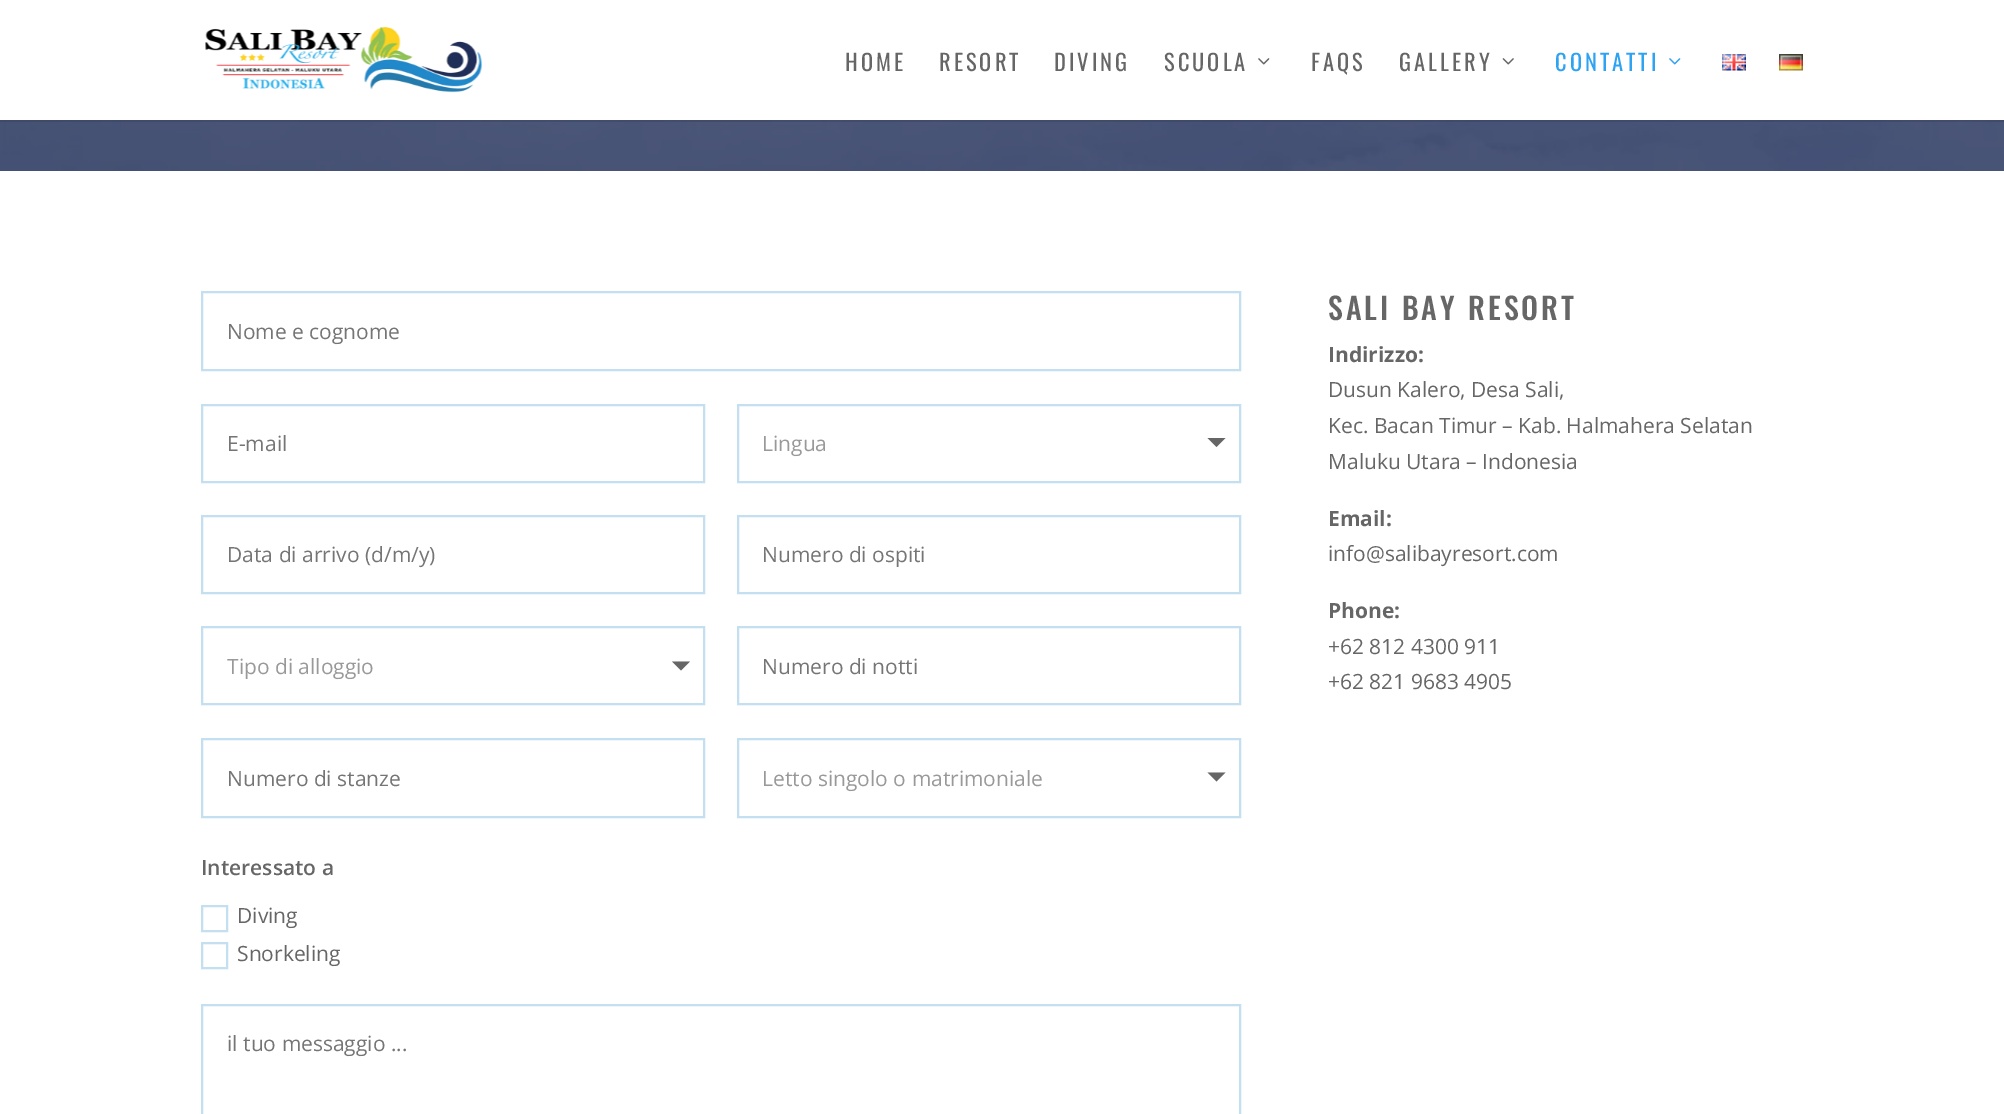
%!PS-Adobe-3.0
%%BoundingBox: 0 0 2004 1114
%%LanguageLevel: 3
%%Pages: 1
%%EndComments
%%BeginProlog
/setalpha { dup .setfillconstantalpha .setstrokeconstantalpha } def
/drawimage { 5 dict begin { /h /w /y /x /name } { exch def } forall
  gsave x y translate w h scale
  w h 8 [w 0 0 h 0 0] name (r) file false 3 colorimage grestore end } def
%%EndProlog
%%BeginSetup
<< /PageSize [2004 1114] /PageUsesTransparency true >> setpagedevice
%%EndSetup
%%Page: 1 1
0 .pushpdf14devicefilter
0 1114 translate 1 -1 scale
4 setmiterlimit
1 setgray
0 0 2004 1114 rectfill
(images/7.raw) 0 120 2004 51 drawimage
0.1 setalpha
0 setgray
0 120 2004 2 rectfill
1 setalpha
(images/1.raw) 205 27 277 66 drawimage
(images/2.raw) 1258 58 12 7 drawimage
(images/3.raw) 1502 58 12 7 drawimage
(images/4.raw) 1669 58 12 7 drawimage
(images/5.raw) 1722 54 24 17 drawimage
(images/6.raw) 1779 54 24 17 drawimage
0.765 0.875 0.941 setrgbcolor
2 setlinewidth
202 292 1038 78 rectstroke
202 405 502 77 rectstroke
738 405 502 77 rectstroke
0.4 setgray
newpath 1207.5 438 moveto 1225.5 438 lineto 1216.5 447 lineto closepath fill
0.765 0.875 0.941 setrgbcolor
202 516 502 77 rectstroke
738 516 502 77 rectstroke
202 627 502 77 rectstroke
0.4 setgray
newpath 672 661.5 moveto 690 661.5 lineto 681 670.5 lineto closepath fill
0.765 0.875 0.941 setrgbcolor
738 627 502 77 rectstroke
202 739 502 78 rectstroke
738 739 502 78 rectstroke
0.4 setgray
newpath 1207.5 772.5 moveto 1225.5 772.5 lineto 1216.5 781.5 lineto closepath fill
0.765 0.875 0.941 setrgbcolor
202 906 25 25 rectstroke
202 943 25 25 rectstroke
202 1005 1038 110 rectstroke
/Oswald-Regular [22.5 0 0 -22.5 0 0] selectfont
0.4 setgray
845 71 moveto 3 0 (HOME) ashow
939 71 moveto 3 0 (RESORT) ashow
1054 71 moveto 3 0 (DIVING) ashow
1164 71 moveto 3 0 (SCUOLA) ashow
1311 71 moveto 3 0 (FAQS) ashow
1399 71 moveto 3 0 (GALLERY) ashow
0.18 0.639 0.949 setrgbcolor
1555 71 moveto 3 0 (CONTATTI) ashow
/OpenSans-Regular [21 0 0 -21 0 0] selectfont
0.459 setgray
227 339 moveto (Nome e cognome) show
227 451 moveto (E-mail) show
0.6 setgray
762 451 moveto (Lingua) show
0.459 setgray
227 562 moveto (Data di arrivo \(d/m/y\)) show
762 562 moveto (Numero di ospiti) show
0.6 setgray
227 674 moveto (Tipo di alloggio) show
0.459 setgray
762 674 moveto (Numero di notti) show
227 786 moveto (Numero di stanze) show
0.6 setgray
762 786 moveto (Letto singolo o matrimoniale) show
/OpenSans-SemiBold [21 0 0 -21 0 0] selectfont
0.4 setgray
201 875 moveto (Interessato a) show
/OpenSans-Regular [21 0 0 -21 0 0] selectfont
237 923 moveto (Diving) show
237 961 moveto (Snorkeling) show
0.459 setgray
227 1051 moveto (il tuo messaggio ...) show
/Oswald-Medium [30 0 0 -30 0 0] selectfont
0.4 setgray
1328 320 moveto 3 0 (SALI BAY RESORT) ashow
/OpenSans-Bold [21 0 0 -21 0 0] selectfont
1328 362 moveto (Indirizzo:) show
/OpenSans-Regular [21 0 0 -21 0 0] selectfont
1328 397 moveto (Dusun Kalero, Desa Sali,) show
1328 433 moveto (Kec. Bacan Timur – Kab. Halmahera Selatan) show
1328 469 moveto (Maluku Utara – Indonesia) show
/OpenSans-Bold [21 0 0 -21 0 0] selectfont
1328 526 moveto (Email:) show
/OpenSans-Regular [21 0 0 -21 0 0] selectfont
1328 561 moveto (info@salibayresort.com) show
/OpenSans-Bold [21 0 0 -21 0 0] selectfont
1328 618 moveto (Phone:) show
/OpenSans-Regular [21 0 0 -21 0 0] selectfont
1328 654 moveto (+62 812 4300 911) show
1328 689 moveto (+62 821 9683 4905) show
.poppdf14devicefilter showpage
%%EOF
